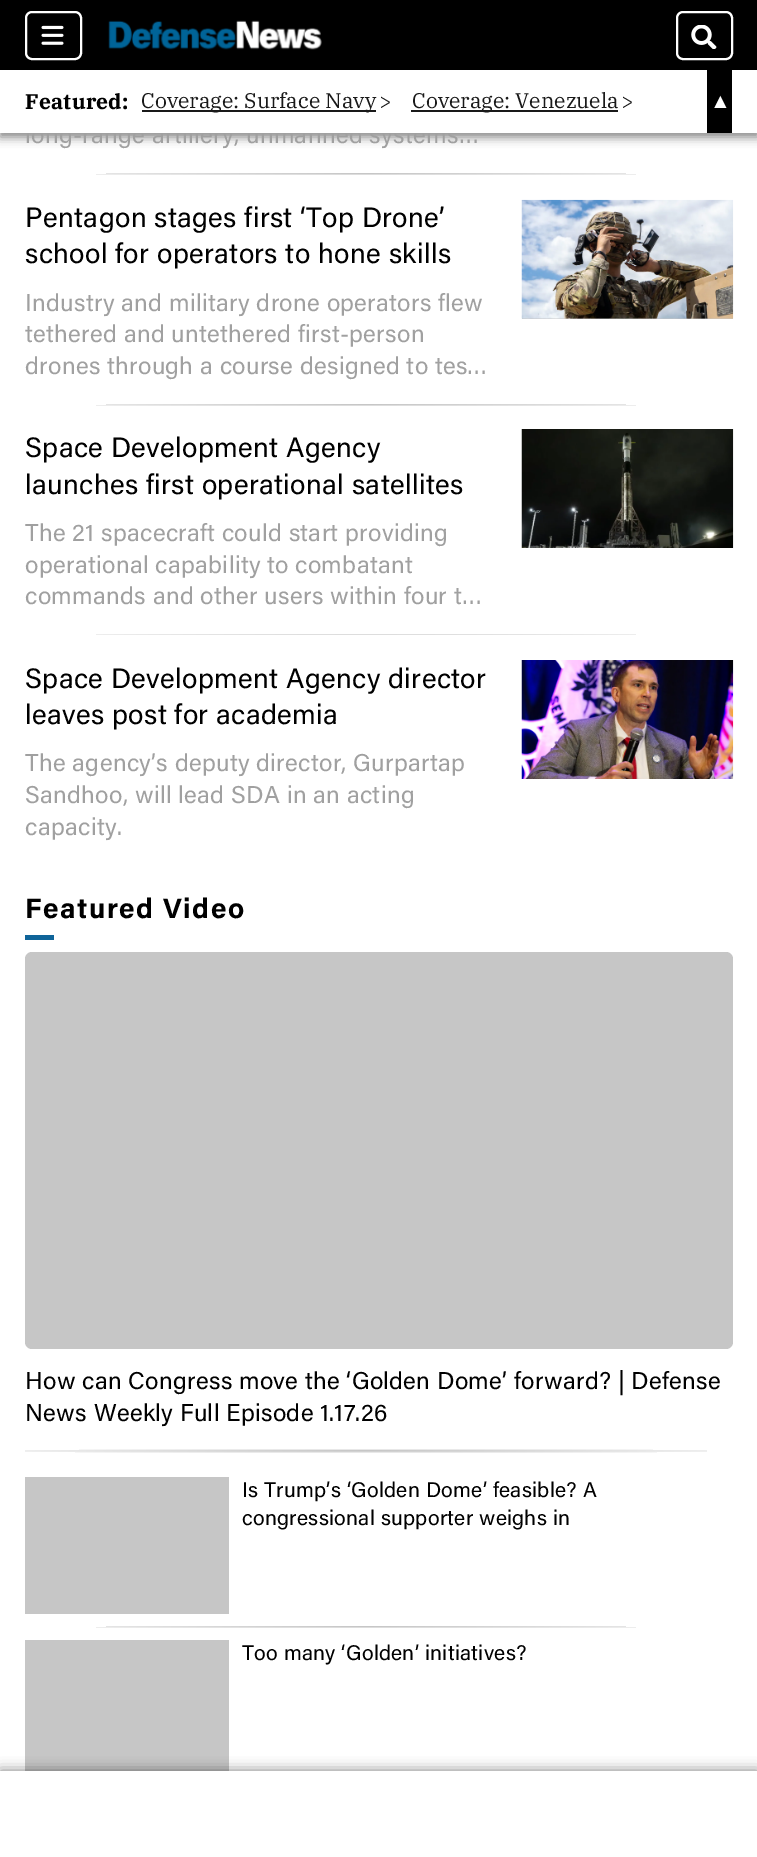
%!PS-Adobe-3.0
%%BoundingBox: 0 0 757 1857
%%LanguageLevel: 3
%%Pages: 1
%%EndComments
%%BeginProlog
/setalpha { dup .setfillconstantalpha .setstrokeconstantalpha } def
/rrect { 5 dict begin { /r /h /w /y /x } { exch def } forall
  x r add y moveto x w add y 2 copy h add r arct x w add y h add x 1 index r arct
  x y h add x y r arct x y 2 copy exch w add exch r arct closepath end } def
/softshadow { 12 dict begin { /a /b /q /h /w /y /x } { exch def } forall gsave /was 0 def
  9 -2 -9 { dup b mul 4 div /e exch def 1 sub .425 mul 2.718 exch exp 1 add a .99 .min exch div /now exch def
    1 1 now sub 1 was sub div sub setalpha /was now def
    w h .min e 2 mul add 0 gt { x e sub y e sub w e 2 mul add h e 2 mul add
      q e add b .6 mul add w h .min 2 div e add .min 0 .max rrect fill } if } for grestore end } def
/drawimage { 5 dict begin { /h /w /y /x /name } { exch def } forall
  gsave x y translate w h scale
  w h 8 [w 0 0 h 0 0] name (r) file false 3 colorimage grestore end } def
%%EndProlog
%%BeginSetup
<< /PageSize [757 1857] /PageUsesTransparency true >> setpagedevice
%%EndSetup
%%Page: 1 1
0 .pushpdf14devicefilter
0 1857 translate 1 -1 scale
4 setmiterlimit
1 setgray
0 0 757 1857 rectfill
0 setgray
0 4 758 133 0 5 0.5 softshadow
0 0 757 70 rectfill
1 setgray
2 setlinewidth
26 12 55 47 6 rrect stroke
(images/1.raw) 41 25 23 20 drawimage
(images/2.raw) 108 20 214 30 drawimage
677 12 55 47 6 rrect stroke
(images/3.raw) 691 25 26 24 drawimage
0.776 setgray
25 1640 204 131 rectfill
0 setgray
0 1771 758 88 0 6.5 0.5 softshadow
1 setgray
0 1771 757 86 rectfill
gsave newpath 25 173 moveto 707 173 lineto 707 175 lineto 25 175 lineto closepath clip newpath 366 174 translate 483 1.2 scale
<< /ShadingType 3 /ColorSpace /DeviceRGB /Coords [0 0 0 0 0 1] /Extend [true true] /Function << /FunctionType 2 /Domain [0 1] /C0 [0.776 0.776 0.776] /C1 [1 1 1] /N 1 >> >> shfill grestore
0.776 setgray
522 318 211 1 rectfill
(images/4.raw) 521 199 213 120 drawimage
gsave newpath 25 404 moveto 707 404 lineto 707 406 lineto 25 406 lineto closepath clip newpath 366 405 translate 483 1.2 scale
<< /ShadingType 3 /ColorSpace /DeviceRGB /Coords [0 0 0 0 0 1] /Extend [true true] /Function << /FunctionType 2 /Domain [0 1] /C0 [0.776 0.776 0.776] /C1 [1 1 1] /N 1 >> >> shfill grestore
(images/5.raw) 521 429 213 119 drawimage
gsave newpath 25 634 moveto 707 634 lineto 707 635 lineto 25 635 lineto closepath clip newpath 366 634 translate 483 1.2 scale
<< /ShadingType 3 /ColorSpace /DeviceRGB /Coords [0 0 0 0 0 1] /Extend [true true] /Function << /FunctionType 2 /Domain [0 1] /C0 [0.776 0.776 0.776] /C1 [1 1 1] /N 1 >> >> shfill grestore
(images/6.raw) 521 660 213 119 drawimage
0.059 0.392 0.6 setrgbcolor
25 935 29 5 rectfill
0.776 setgray
25 952 708 397 7 rrect fill
gsave newpath 25 1449 moveto 707 1449 lineto 707 1453 lineto 25 1453 lineto closepath clip newpath 366 1451 translate 483 2.5 scale
<< /ShadingType 3 /ColorSpace /DeviceRGB /Coords [0 0 0 0 0 1] /Extend [true true] /Function << /FunctionType 2 /Domain [0 1] /C0 [0.776 0.776 0.776] /C1 [1 1 1] /N 1 >> >> shfill grestore
25 1477 204 137 rectfill
gsave newpath 25 1626 moveto 707 1626 lineto 707 1628 lineto 25 1628 lineto closepath clip newpath 366 1627 translate 483 1.2 scale
<< /ShadingType 3 /ColorSpace /DeviceRGB /Coords [0 0 0 0 0 1] /Extend [true true] /Function << /FunctionType 2 /Domain [0 1] /C0 [0.776 0.776 0.776] /C1 [1 1 1] /N 1 >> >> shfill grestore
/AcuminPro-Regular [24.3 0 0 -24.3 0 0] selectfont
0.627 setgray
25 143 moveto 0.3 0 (long-range artillery, unmanned systems…) ashow
1 setgray
0 70 757 63 rectfill
0 setgray
707 70 25 63 rectfill
/LiberationSerif-Regular [21 0 0 -21 0 0] selectfont
1 setgray
710 108 moveto (▲) show
0.098 setgray
411 110 207 2 rectfill
/IBMPlexSerif-Regular [21.2 0 0 -21.2 0 0] selectfont
412 108 moveto (Coverage: Venezuela) show
621 108 moveto -5 0 (>) ashow
142 110 234 2 rectfill
141 108 moveto (Coverage: Surface Navy) show
379 108 moveto -5 0 (>) ashow
/IBMPlexSerif-Bold [21.2 0 0 -21.2 0 0] selectfont
0 setgray
25 109 moveto 0.25 0 (Featured:) ashow
/AcuminPro-Regular [28 0 0 -28 0 0] selectfont
25 227 moveto 0.35 0 (Pentagon stages first ‘Top Drone’) ashow
25 263 moveto 0.35 0 (school for operators to hone skills) ashow
/AcuminPro-Regular [24.3 0 0 -24.3 0 0] selectfont
0.627 setgray
25 311 moveto 0.3 0 (Industry and military drone operators flew) ashow
gsave
25 284 472 96 rectclip
25 342 moveto 0.3 0 (tethered and untethered first-person) ashow
grestore
25 374 moveto 0.3 0 (drones through a course designed to tes…) ashow
/AcuminPro-Regular [28 0 0 -28 0 0] selectfont
0 setgray
25 457 moveto 0.35 0 (Space Development Agency) ashow
25 494 moveto 0.35 0 (launches first operational satellites) ashow
/AcuminPro-Regular [24.3 0 0 -24.3 0 0] selectfont
0.627 setgray
25 541 moveto 0.3 0 (The 21 spacecraft could start providing) ashow
25 573 moveto 0.3 0 (operational capability to combatant) ashow
25 604 moveto 0.3 0 (commands and other users within four t…) ashow
/AcuminPro-Regular [28 0 0 -28 0 0] selectfont
0 setgray
25 688 moveto 0.35 0 (Space Development Agency director) ashow
25 724 moveto 0.35 0 (leaves post for academia) ashow
/AcuminPro-Regular [24.3 0 0 -24.3 0 0] selectfont
0.627 setgray
25 771 moveto 0.3 0 (The agency’s deputy director, Gurpartap) ashow
25 803 moveto 0.3 0 (Sandhoo, will lead SDA in an acting) ashow
25 835 moveto 0.3 0 (capacity.) ashow
/AcuminPro-Bold [28 0 0 -28 0 0] selectfont
0 setgray
25 918 moveto 1.5 0 (Featured Video) ashow
/AcuminPro-Regular [24.3 0 0 -24.3 0 0] selectfont
25 1389 moveto 0.3 0 (How can Congress move the ‘Golden Dome’ forward? | Defense) ashow
25 1421 moveto 0.3 0 (News Weekly Full Episode 1.17.26) ashow
/AcuminPro-Regular [21.2 0 0 -21.2 0 0] selectfont
242 1497 moveto 0.25 0 (Is Trump’s ‘Golden Dome’ feasible? A) ashow
242 1525 moveto 0.25 0 (congressional supporter weighs in) ashow
242 1660 moveto 0.25 0 (Too many ‘Golden’ initiatives?) ashow
.poppdf14devicefilter showpage
%%EOF
